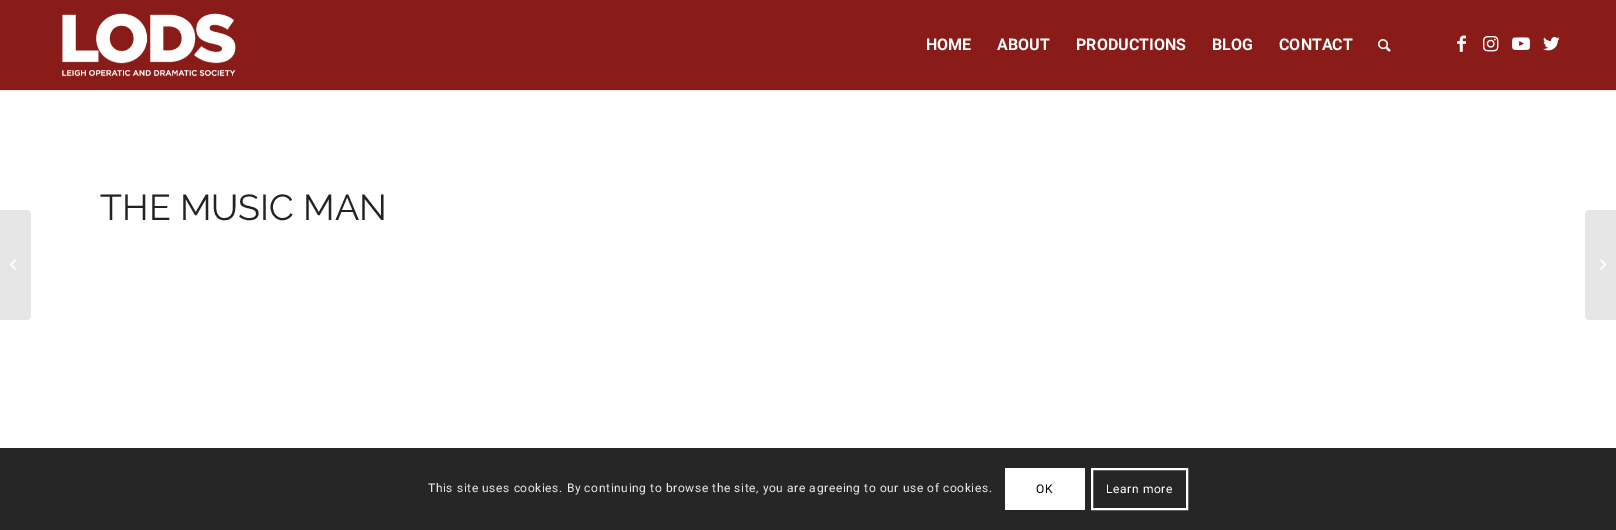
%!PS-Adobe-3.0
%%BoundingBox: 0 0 1616 530
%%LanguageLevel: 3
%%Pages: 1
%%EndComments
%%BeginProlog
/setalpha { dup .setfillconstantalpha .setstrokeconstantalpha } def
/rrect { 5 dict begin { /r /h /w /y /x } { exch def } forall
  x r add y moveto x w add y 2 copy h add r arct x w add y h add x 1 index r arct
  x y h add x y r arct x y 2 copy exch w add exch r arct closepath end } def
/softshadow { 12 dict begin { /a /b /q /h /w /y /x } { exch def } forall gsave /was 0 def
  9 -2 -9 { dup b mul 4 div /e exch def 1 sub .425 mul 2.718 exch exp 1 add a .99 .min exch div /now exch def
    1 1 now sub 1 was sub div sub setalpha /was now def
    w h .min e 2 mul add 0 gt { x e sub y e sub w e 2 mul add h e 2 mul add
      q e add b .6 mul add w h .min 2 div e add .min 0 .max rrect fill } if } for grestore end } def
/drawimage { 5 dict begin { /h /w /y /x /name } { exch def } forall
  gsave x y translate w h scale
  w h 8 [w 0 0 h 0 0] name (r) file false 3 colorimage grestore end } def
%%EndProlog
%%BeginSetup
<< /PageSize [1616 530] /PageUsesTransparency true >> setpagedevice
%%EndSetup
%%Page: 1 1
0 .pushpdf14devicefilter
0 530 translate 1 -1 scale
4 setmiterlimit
1 setgray
0 0 1616 530 rectfill
0 setgray
-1 -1 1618 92 0 1 0.1 softshadow
0.537 0.11 0.094 setrgbcolor
0 0 1616 90 rectfill
(images/1.raw) 62 13 174 64 drawimage
(images/2.raw) 1378 39 13 13 drawimage
(images/3.raw) 1457 35 9 17 drawimage
(images/4.raw) 1483 36 16 16 drawimage
(images/5.raw) 1512 37 18 13 drawimage
(images/6.raw) 1543 37 17 14 drawimage
0.902 setgray
newpath 0 210 moveto 27 210 lineto 29 210 31 212 31 214 curveto 31 316 lineto 31 318 29 320 27 320 curveto 0 320 lineto closepath fill
(images/7.raw) 10 259 7 11 drawimage
newpath 1589 210 moveto 1616 210 lineto 1616 320 lineto 1589 320 lineto 1587 320 1585 318 1585 316 curveto 1585 214 lineto 1585 212 1587 210 1589 210 curveto closepath fill
(images/8.raw) 1600 259 7 11 drawimage
0.149 setgray
0 448 1616 82 rectfill
1 setgray
1005 468 80 42 rectfill
2 setlinewidth
1092 469 95 40 rectstroke
/Roboto-Bold [16 0 0 -16 0 0] selectfont
926 50 moveto (HOME) show
997 50 moveto (ABOUT) show
1076 50 moveto (PRODUCTIONS) show
1212 50 moveto (BLOG) show
1279 50 moveto (CONTACT) show
/Raleway-Thin [36 0 0 -36 0 0] selectfont
0.133 setgray
100 220 moveto (THE MUSIC MAN) show
/Roboto-Regular [12 0 0 -12 0 0] selectfont
0.914 setgray
428 492 moveto 0.6 0 (This site uses cookies. By continuing to browse the site, you are agreeing to our use of cookies.) ashow
0 setgray
1036 493 moveto 0.6 0 (OK) ashow
1 setgray
1106 493 moveto 0.6 0 (Learn more) ashow
.poppdf14devicefilter showpage
%%EOF
